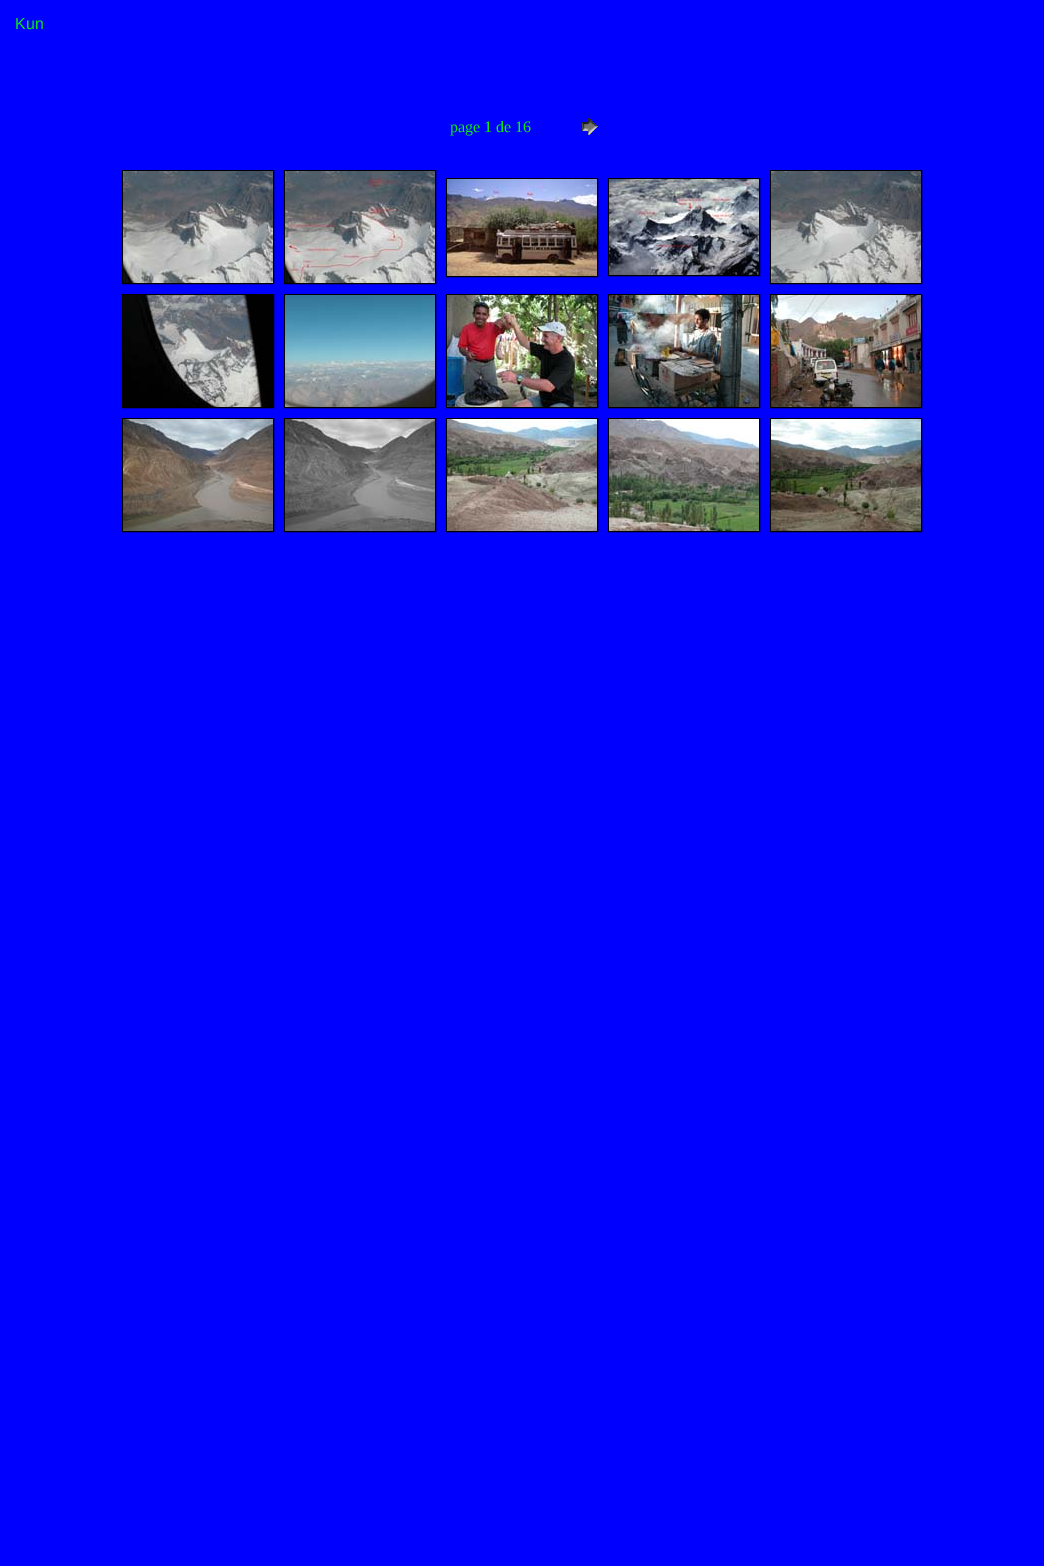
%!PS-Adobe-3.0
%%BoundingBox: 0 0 1044 1566
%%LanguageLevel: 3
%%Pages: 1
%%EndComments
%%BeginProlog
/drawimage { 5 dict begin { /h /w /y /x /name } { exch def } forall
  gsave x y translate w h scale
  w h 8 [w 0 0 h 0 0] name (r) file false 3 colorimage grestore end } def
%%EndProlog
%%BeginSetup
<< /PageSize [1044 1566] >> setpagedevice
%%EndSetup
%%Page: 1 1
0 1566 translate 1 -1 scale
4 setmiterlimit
0 0 1 setrgbcolor
0 0 1044 1566 rectfill
(images/1.raw) 582 118 16 17 drawimage
0 setgray
122.5 170.5 151 113 rectstroke
(images/2.raw) 123 171 150 112 drawimage
284.5 170.5 151 113 rectstroke
(images/3.raw) 285 171 150 112 drawimage
446.5 178.5 151 98 rectstroke
(images/4.raw) 447 179 150 97 drawimage
608.5 178.5 151 97 rectstroke
(images/5.raw) 609 179 150 96 drawimage
770.5 170.5 151 113 rectstroke
(images/6.raw) 771 171 150 112 drawimage
122.5 294.5 151 113 rectstroke
(images/7.raw) 123 295 150 112 drawimage
284.5 294.5 151 113 rectstroke
(images/8.raw) 285 295 150 112 drawimage
446.5 294.5 151 113 rectstroke
(images/9.raw) 447 295 150 112 drawimage
608.5 294.5 151 113 rectstroke
(images/10.raw) 609 295 150 112 drawimage
770.5 294.5 151 113 rectstroke
(images/11.raw) 771 295 150 112 drawimage
122.5 418.5 151 113 rectstroke
(images/12.raw) 123 419 150 112 drawimage
284.5 418.5 151 113 rectstroke
(images/13.raw) 285 419 150 112 drawimage
446.5 418.5 151 113 rectstroke
(images/14.raw) 447 419 150 112 drawimage
608.5 418.5 151 113 rectstroke
(images/15.raw) 609 419 150 112 drawimage
770.5 418.5 151 113 rectstroke
(images/16.raw) 771 419 150 112 drawimage
/LiberationSans-Regular [16 0 0 -16 0 0] selectfont
0.055 0.906 0.094 setrgbcolor
15 29 moveto (Kun) show
/LiberationSerif-Regular [16 0 0 -16 0 0] selectfont
450 132 moveto (page 1 de 16) show
showpage
%%EOF
